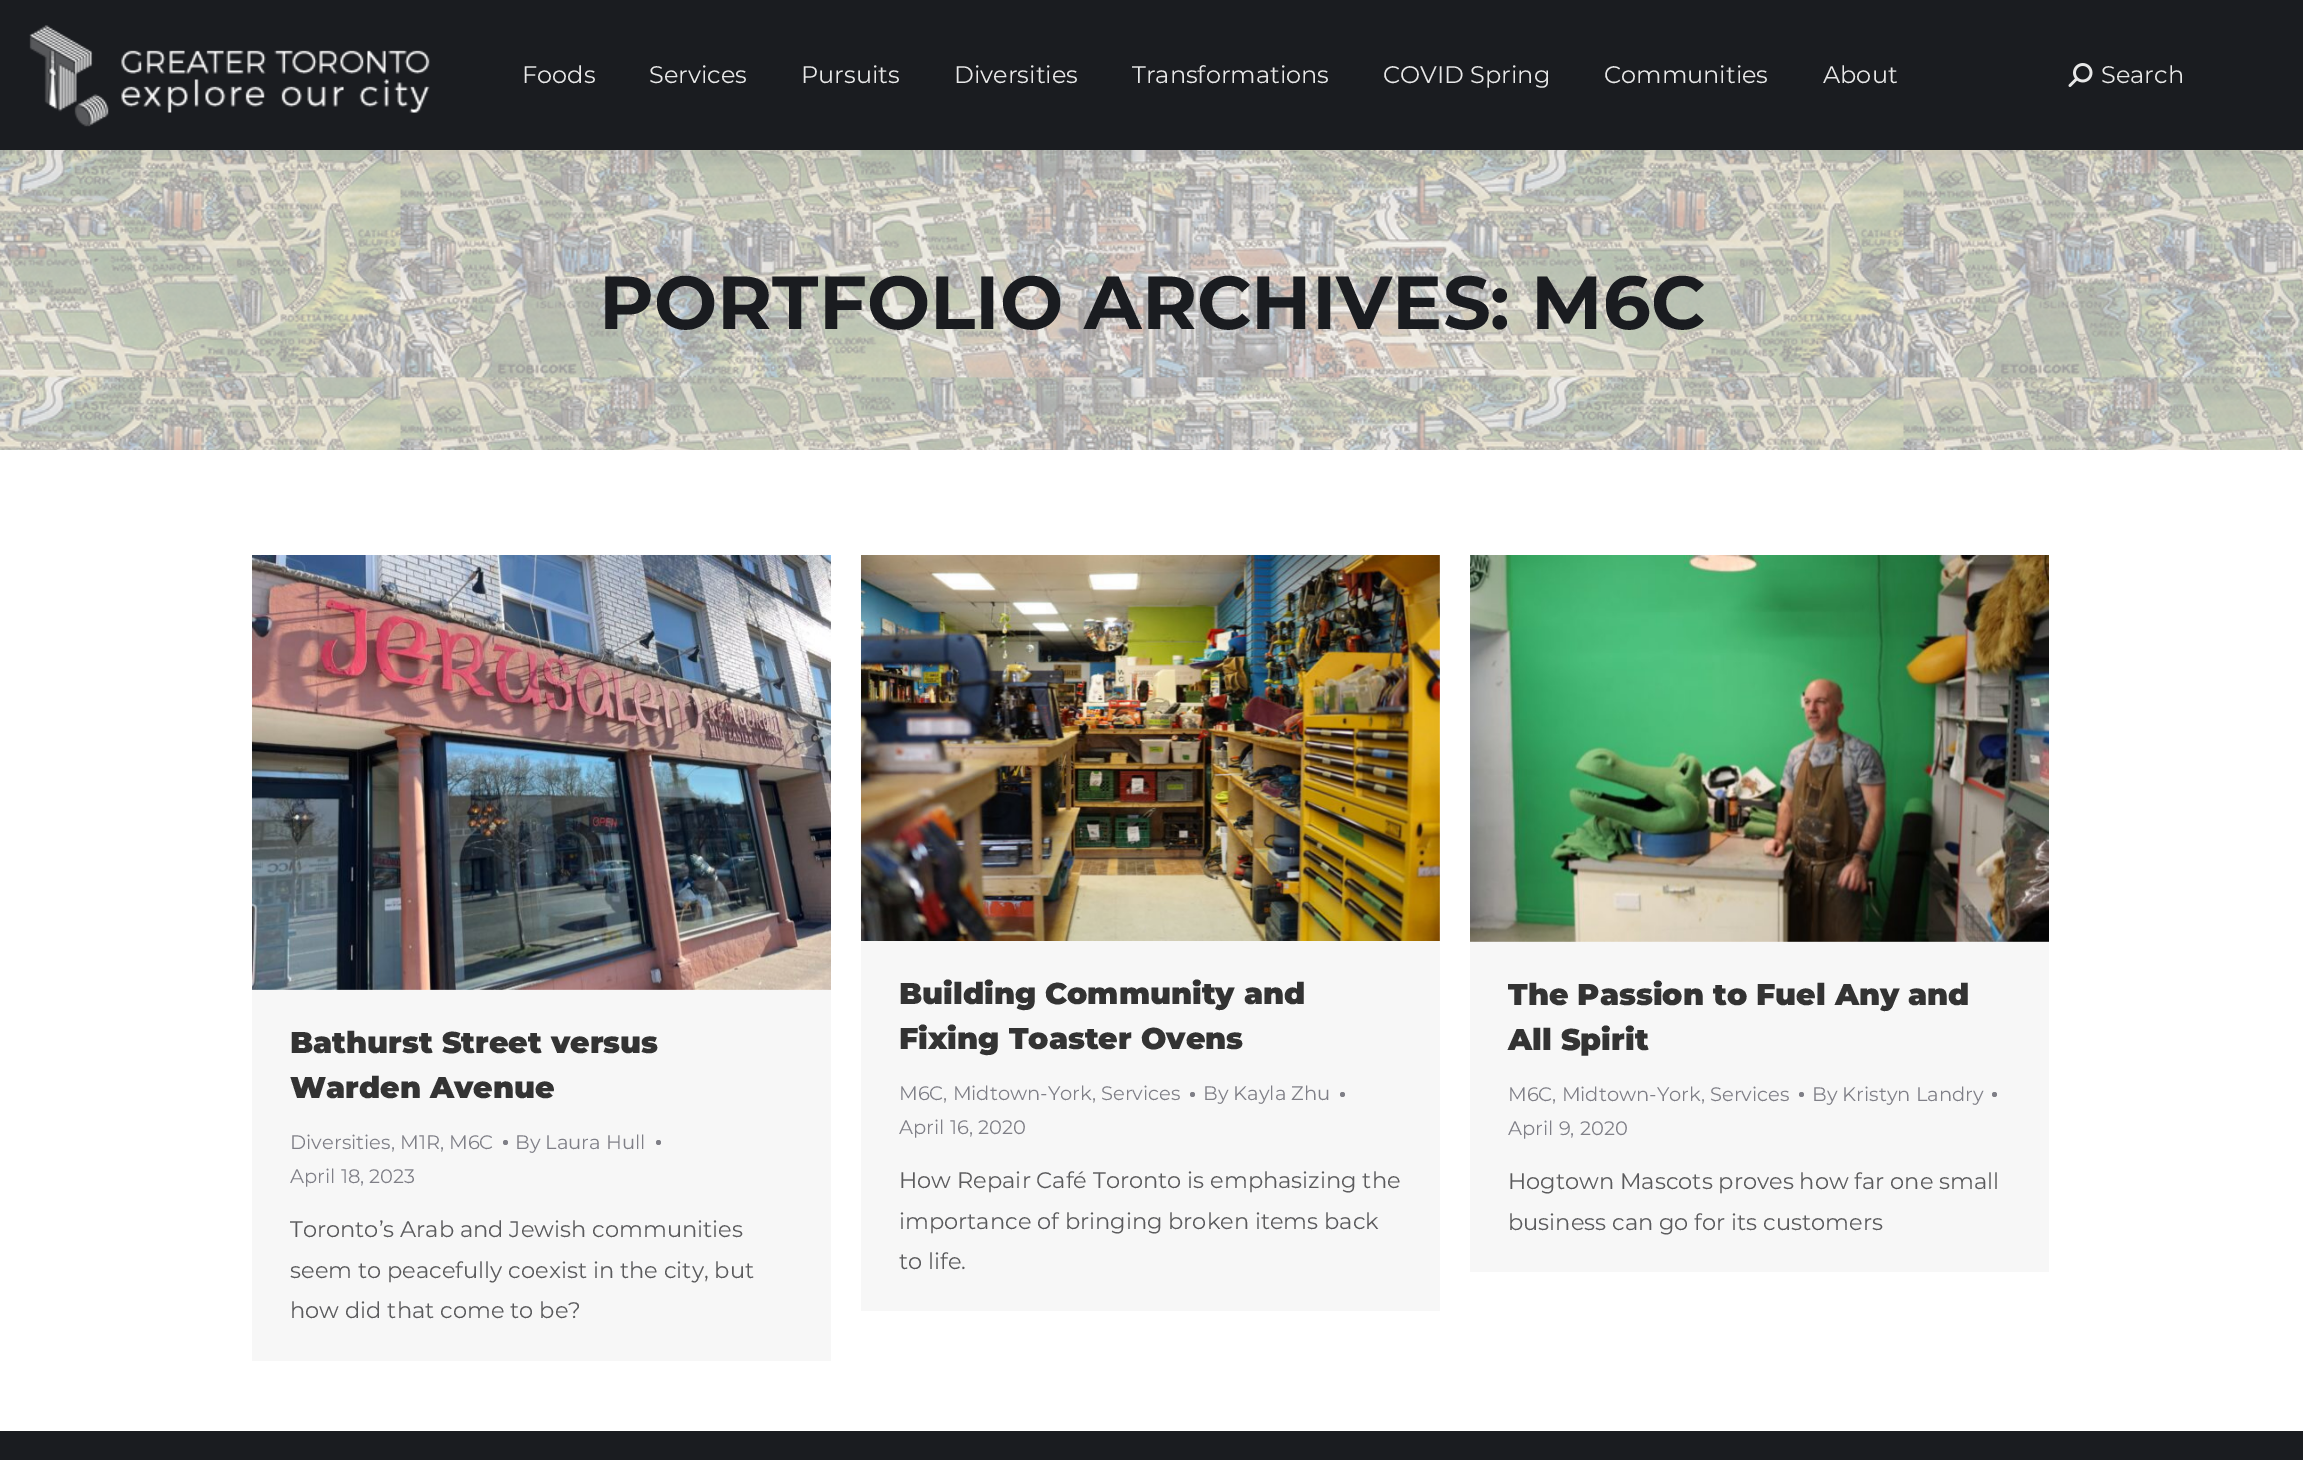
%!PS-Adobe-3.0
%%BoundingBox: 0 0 2303 1460
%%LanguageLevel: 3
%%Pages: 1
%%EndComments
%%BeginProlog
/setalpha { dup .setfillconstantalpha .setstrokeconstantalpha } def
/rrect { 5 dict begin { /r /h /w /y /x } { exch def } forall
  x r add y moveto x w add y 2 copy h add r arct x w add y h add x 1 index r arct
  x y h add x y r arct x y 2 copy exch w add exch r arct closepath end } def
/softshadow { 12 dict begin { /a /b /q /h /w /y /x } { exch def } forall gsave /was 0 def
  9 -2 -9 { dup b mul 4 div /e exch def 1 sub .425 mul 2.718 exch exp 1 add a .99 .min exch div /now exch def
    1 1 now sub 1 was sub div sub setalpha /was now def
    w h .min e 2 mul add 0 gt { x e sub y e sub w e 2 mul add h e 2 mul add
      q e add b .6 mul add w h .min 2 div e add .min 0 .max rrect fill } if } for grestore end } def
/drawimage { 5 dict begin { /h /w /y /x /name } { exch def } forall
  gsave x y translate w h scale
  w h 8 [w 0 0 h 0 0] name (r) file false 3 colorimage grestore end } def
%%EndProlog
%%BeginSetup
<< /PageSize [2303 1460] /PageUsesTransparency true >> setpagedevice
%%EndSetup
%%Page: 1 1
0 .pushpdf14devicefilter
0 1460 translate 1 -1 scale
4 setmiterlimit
1 setgray
0 0 2303 1460 rectfill
(images/3.raw) 0 150 2303 300 drawimage
0 setgray
-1 -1 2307 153 0 11 0.07 softshadow
0.102 0.11 0.125 setrgbcolor
0 0 2303 150 rectfill
(images/1.raw) 29 25 401 102 drawimage
(images/2.raw) 2068 63 25 24 drawimage
0.969 setgray
252 989 579 372 rectfill
(images/4.raw) 252 555 579 435 drawimage
0.498 0.498 0.529 setrgbcolor
newpath 505.5 1142.5 2.5 0 360 arc closepath fill
newpath 658.5 1142.5 2.5 0 360 arc closepath fill
0.969 setgray
861 555 579 756 rectfill
(images/5.raw) 861 555 579 386 drawimage
0.498 0.498 0.529 setrgbcolor
newpath 1192.5 1094.5 2.5 0 360 arc closepath fill
newpath 1342.5 1094.5 2.5 0 360 arc closepath fill
0.969 setgray
1470 941 579 331 rectfill
(images/6.raw) 1470 555 579 387 drawimage
0.498 0.498 0.529 setrgbcolor
newpath 1801.5 1094.5 2.5 0 360 arc closepath fill
newpath 1994.5 1094.5 2.5 0 360 arc closepath fill
0.102 0.11 0.125 setrgbcolor
0 1431 2303 29 rectfill
/Montserrat-Regular [24 0 0 -24 0 0] selectfont
0.91 setgray
522 83 moveto (Foods) show
649 83 moveto (Services) show
801 83 moveto (Pursuits) show
954 83 moveto (Diversities) show
1132 83 moveto (Transformations) show
1383 83 moveto (COVID Spring) show
1604 83 moveto (Communities) show
1823 83 moveto (About) show
2101 83 moveto (Search) show
/Montserrat-Bold [75 0 0 -75 0 0] selectfont
0.102 0.11 0.125 setrgbcolor
599 329 moveto (PORTFOLIO ARCHIVES: M6C) show
/Montserrat-Black [30 0 0 -30 0 0] selectfont
0.2 setgray
290 1053 moveto (Bathurst Street versus) show
290 1098 moveto (Warden Avenue) show
/Montserrat-Regular [19.5 0 0 -19.5 0 0] selectfont
0.498 0.498 0.529 setrgbcolor
290 1149 moveto (Diversities, M1R, M6C) show
515 1149 moveto (By Laura Hull) show
290 1183 moveto (April 18, 2023) show
/Montserrat-Regular [22.5 0 0 -22.5 0 0] selectfont
0.357 0.357 0.365 setrgbcolor
290 1237 moveto (Toronto’s Arab and Jewish communities) show
290 1278 moveto (seem to peacefully coexist in the city, but) show
290 1318 moveto (how did that come to be?) show
/Montserrat-Black [30 0 0 -30 0 0] selectfont
0.2 setgray
899 1004 moveto (Building Community and) show
899 1049 moveto (Fixing Toaster Ovens) show
/Montserrat-Regular [19.5 0 0 -19.5 0 0] selectfont
0.498 0.498 0.529 setrgbcolor
899 1100 moveto (M6C, Midtown-York, Services) show
1203 1100 moveto (By Kayla Zhu) show
899 1134 moveto (April 16, 2020) show
/Montserrat-Regular [22.5 0 0 -22.5 0 0] selectfont
0.357 0.357 0.365 setrgbcolor
899 1188 moveto (How Repair Café Toronto is emphasizing the) show
899 1229 moveto (importance of bringing broken items back) show
899 1269 moveto (to life.) show
/Montserrat-Black [30 0 0 -30 0 0] selectfont
0.2 setgray
1508 1005 moveto (The Passion to Fuel Any and) show
1508 1050 moveto (All Spirit) show
/Montserrat-Regular [19.5 0 0 -19.5 0 0] selectfont
0.498 0.498 0.529 setrgbcolor
1508 1101 moveto (M6C, Midtown-York, Services) show
1812 1101 moveto (By Kristyn Landry) show
1508 1135 moveto (April 9, 2020) show
/Montserrat-Regular [22.5 0 0 -22.5 0 0] selectfont
0.357 0.357 0.365 setrgbcolor
1508 1189 moveto (Hogtown Mascots proves how far one small) show
1508 1230 moveto (business can go for its customers) show
.poppdf14devicefilter showpage
%%EOF
